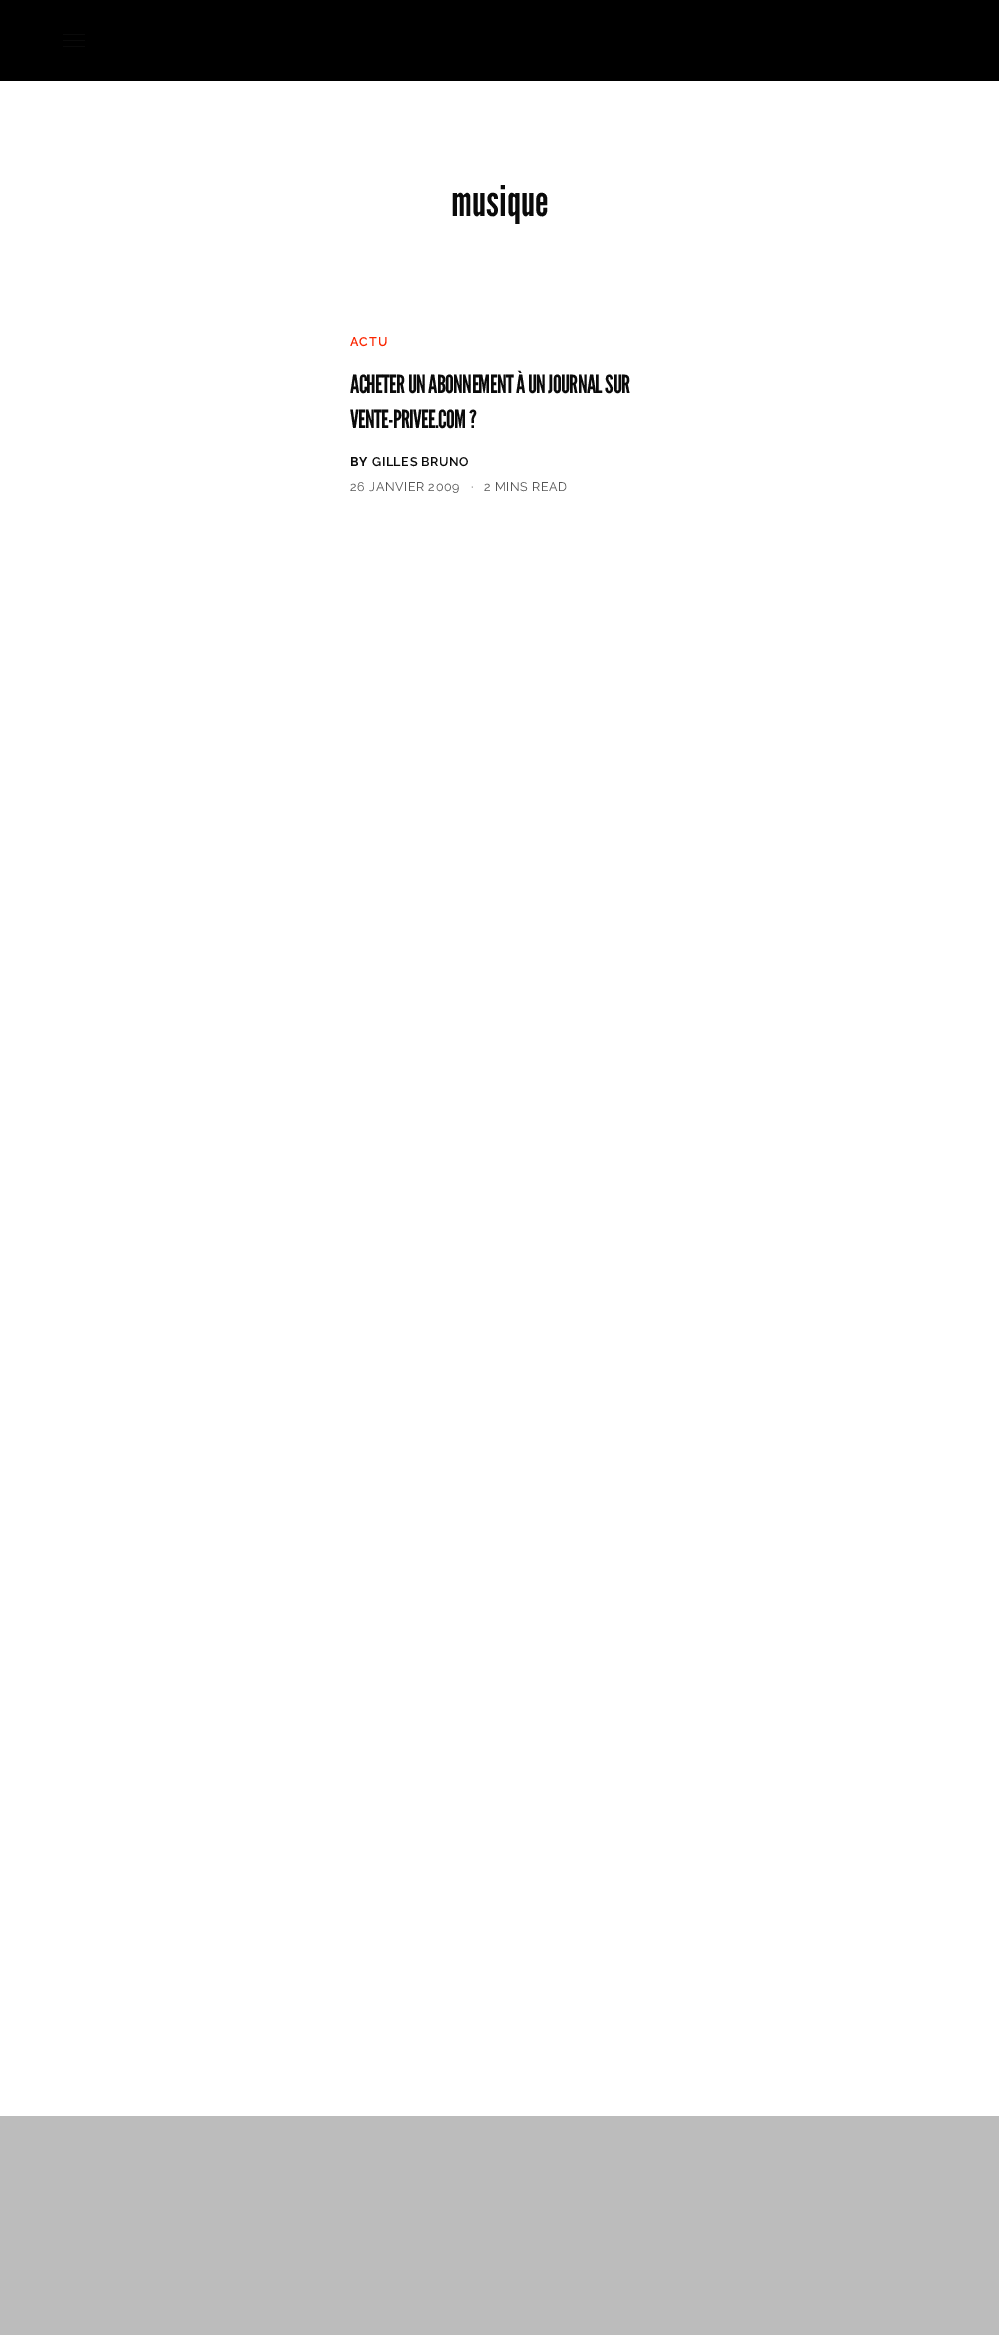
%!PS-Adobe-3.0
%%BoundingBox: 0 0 999 2335
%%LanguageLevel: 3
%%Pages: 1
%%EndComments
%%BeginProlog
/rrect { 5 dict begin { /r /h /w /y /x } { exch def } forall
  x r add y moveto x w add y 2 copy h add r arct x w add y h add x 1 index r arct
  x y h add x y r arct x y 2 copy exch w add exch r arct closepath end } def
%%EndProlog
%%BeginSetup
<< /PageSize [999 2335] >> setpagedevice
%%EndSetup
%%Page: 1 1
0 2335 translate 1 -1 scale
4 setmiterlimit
1 setgray
0 0 999 2335 rectfill
0 setgray
0 0 999 81 rectfill
0.039 setgray
63 34 22 1 0.5 rrect fill
63 40 22 1 0.5 rrect fill
63 46 22 1 0.5 rrect fill
0.737 setgray
0 2116 999 219 rectfill
/LeagueGothic-Regular [42 0 0 -42 0 0] selectfont
0.039 setgray
451 216 moveto (musique) show
/Raleway-SemiBold [12.5 0 0 -12.5 0 0] selectfont
0.984 0.145 0 setrgbcolor
350 346 moveto 1 0 (ACTU) ashow
/LeagueGothic-Regular [25 0 0 -25 0 0] selectfont
0.039 setgray
350 393 moveto -0.75 0 (ACHETER UN ABONNEMENT À UN JOURNAL SUR) ashow
350 428 moveto -0.75 0 (VENTE-PRIVEE.COM ?) ashow
/Raleway-Bold [12.5 0 0 -12.5 0 0] selectfont
350 466 moveto 0.6 0 (BY) ashow
/Raleway-SemiBold [12.5 0 0 -12.5 0 0] selectfont
372 466 moveto 0.6 0 (GILLES BRUNO) ashow
/Raleway-Regular [12.5 0 0 -12.5 0 0] selectfont
0.329 setgray
350 491 moveto 0.6 0 (26 JANVIER 2009) ashow
/Raleway-SemiBold [12.5 0 0 -12.5 0 0] selectfont
0.71 setgray
471 491 moveto 0.6 0 (·) ashow
/Raleway-Regular [12.5 0 0 -12.5 0 0] selectfont
0.329 setgray
484 491 moveto 0.6 0 (2 MINS READ) ashow
showpage
%%EOF
